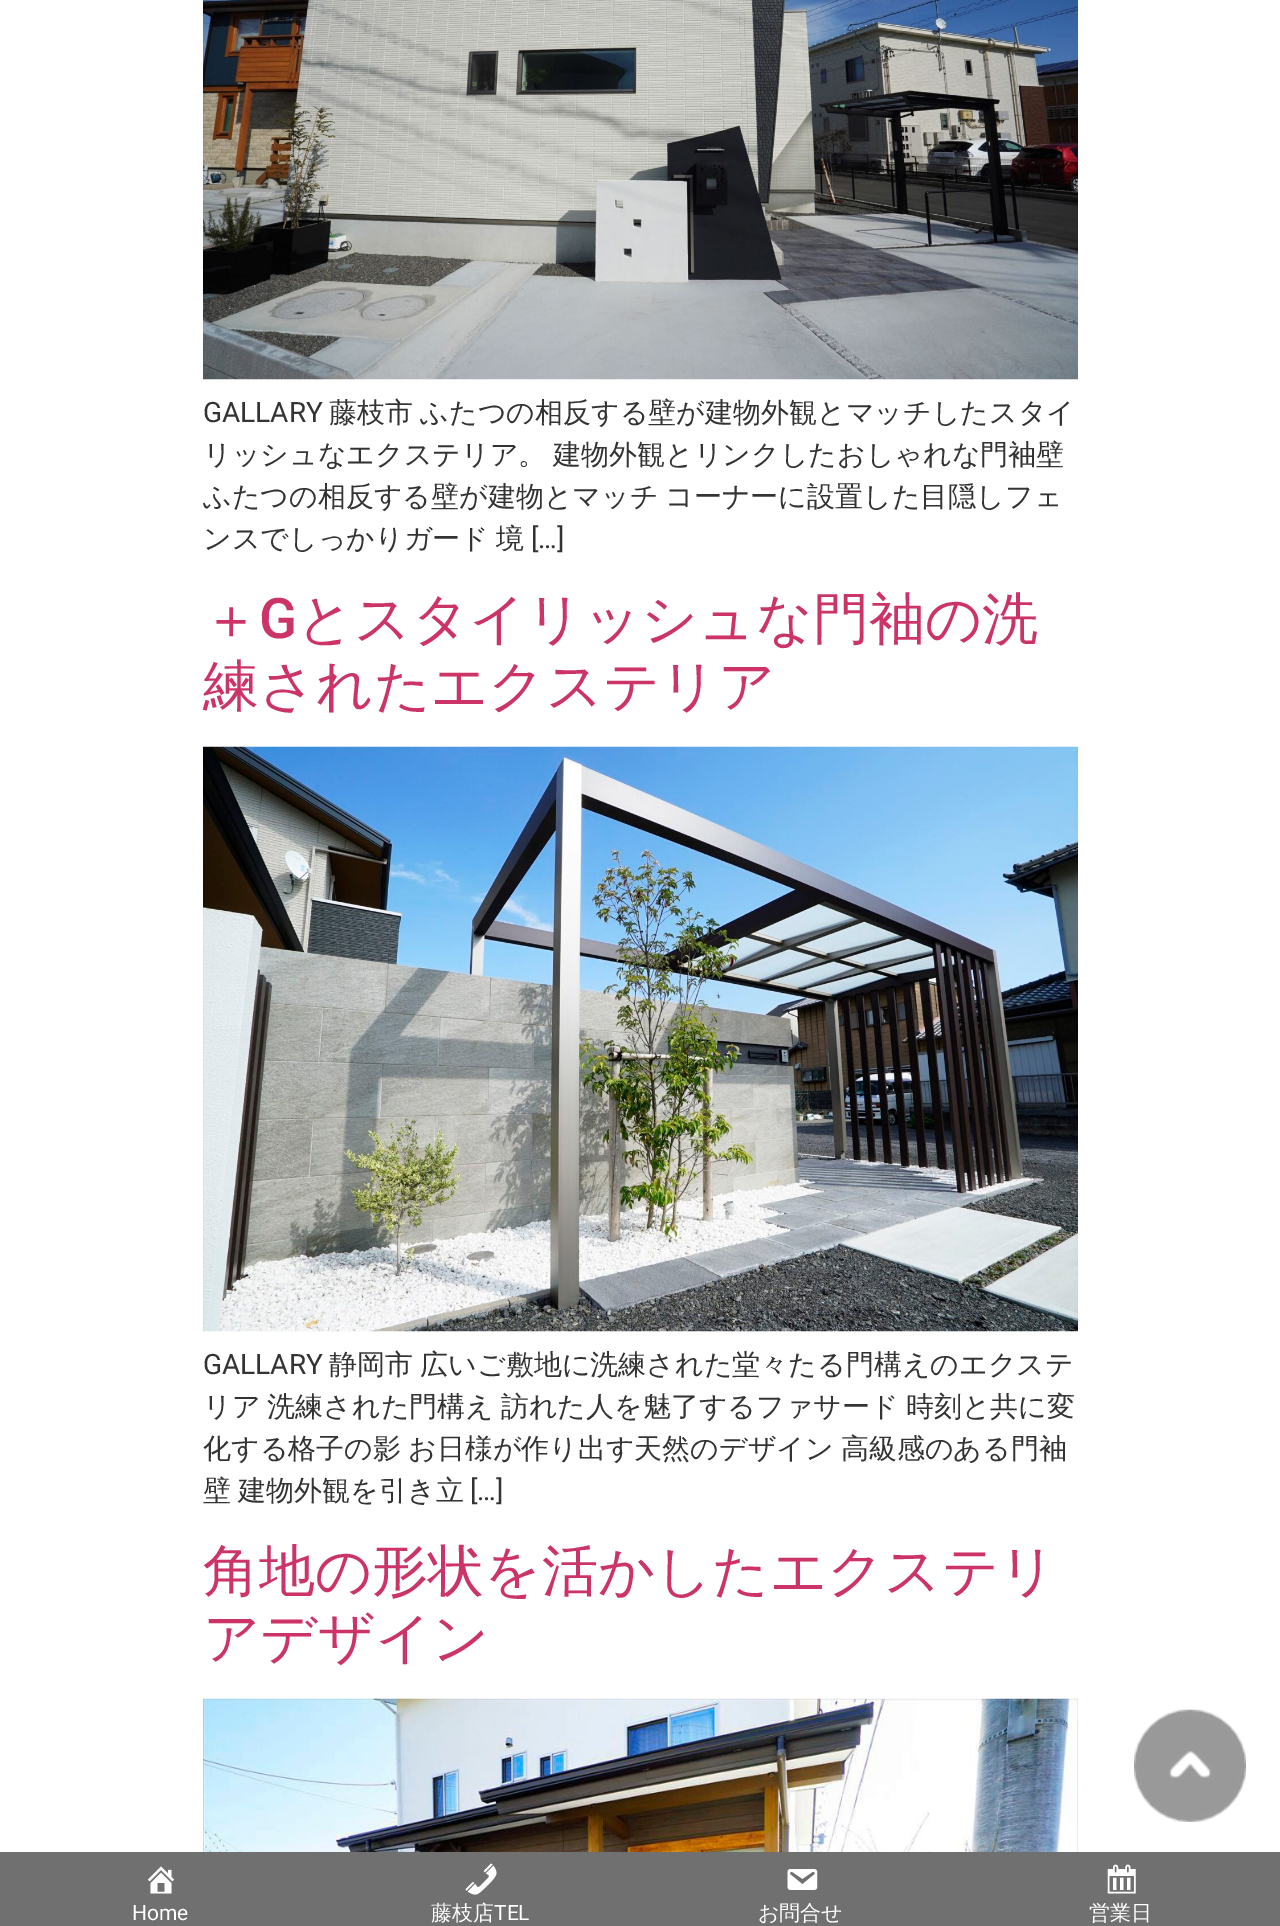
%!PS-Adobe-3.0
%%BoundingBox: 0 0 1280 1926
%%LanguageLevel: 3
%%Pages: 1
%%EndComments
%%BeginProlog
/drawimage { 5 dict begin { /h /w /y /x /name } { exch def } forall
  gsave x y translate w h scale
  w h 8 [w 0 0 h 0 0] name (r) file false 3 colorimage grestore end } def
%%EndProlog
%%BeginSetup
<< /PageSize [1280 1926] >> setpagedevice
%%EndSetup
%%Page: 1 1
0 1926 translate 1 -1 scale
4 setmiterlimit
1 setgray
0 0 1280 1926 rectfill
(images/1.raw) 203 0 875 380 drawimage
(images/2.raw) 203 746 875 586 drawimage
(images/3.raw) 203 1698 875 154 drawimage
(images/4.raw) 1134 1709 112 113 drawimage
0.439 setgray
0 1852 1280 74 rectfill
(images/5.raw) 147 1866 28 28 drawimage
(images/6.raw) 465 1863 32 32 drawimage
(images/7.raw) 787 1869 31 21 drawimage
(images/8.raw) 1107 1864 29 30 drawimage
/Roboto-Regular [28 0 0 -28 0 0] selectfont
0.2 setgray
203 422 moveto (GALLARY) show
/WenQuanYiZenHei-Medium [28 0 0 -28 0 0] selectfont
329 422 moveto -1 0 32 (藤枝市 ふたつの相反する壁が建物外観とマッチしたスタイ) widthshow
203 464 moveto -1.5 0 32 (リッシュなエクステリア。 建物外観とリンクしたおしゃれな門袖壁) widthshow
203 506 moveto -1.5 0 32 (ふたつの相反する壁が建物とマッチ コーナーに設置した目隠しフェ) widthshow
203 548 moveto -1 0 32 (ンスでしっかりガード 境) widthshow
/Roboto-Regular [28 0 0 -28 0 0] selectfont
531 548 moveto ([…]) show
/WenQuanYiZenHei-Medium [56 0 0 -56 0 0] selectfont
0.8 0.2 0.4 setrgbcolor
203 638 moveto (＋) show
/Roboto-Medium [56 0 0 -56 0 0] selectfont
259 638 moveto (G) show
/WenQuanYiZenHei-Medium [56 0 0 -56 0 0] selectfont
297 638 moveto (とスタイリッシュな門袖の洗) show
203 705 moveto (練されたエクステリア) show
/Roboto-Regular [28 0 0 -28 0 0] selectfont
0.2 setgray
203 1374 moveto (GALLARY) show
/WenQuanYiZenHei-Medium [28 0 0 -28 0 0] selectfont
329 1374 moveto -1 0 32 (静岡市 広いご敷地に洗練された堂々たる門構えのエクステ) widthshow
203 1416 moveto -1.5 0 32 (リア 洗練された門構え 訪れた人を魅了するファサード 時刻と共に変) widthshow
203 1458 moveto -1.5 0 32 (化する格子の影 お日様が作り出す天然のデザイン 高級感のある門袖) widthshow
203 1500 moveto -1 0 32 (壁 建物外観を引き立) widthshow
/Roboto-Regular [28 0 0 -28 0 0] selectfont
470 1500 moveto ([…]) show
/WenQuanYiZenHei-Medium [56 0 0 -56 0 0] selectfont
0.8 0.2 0.4 setrgbcolor
203 1590 moveto (角地の形状を活かしたエクステリ) show
203 1657 moveto (アデザイン) show
/Roboto-Regular [21 0 0 -21 0 0] selectfont
1 setgray
132 1920 moveto (Home) show
/WenQuanYiZenHei-Medium [21 0 0 -21 0 0] selectfont
431 1920 moveto (藤枝店) show
/Roboto-Regular [21 0 0 -21 0 0] selectfont
494 1920 moveto (TEL) show
/WenQuanYiZenHei-Medium [21 0 0 -21 0 0] selectfont
758 1920 moveto (お問合せ) show
1089 1920 moveto (営業日) show
showpage
%%EOF
